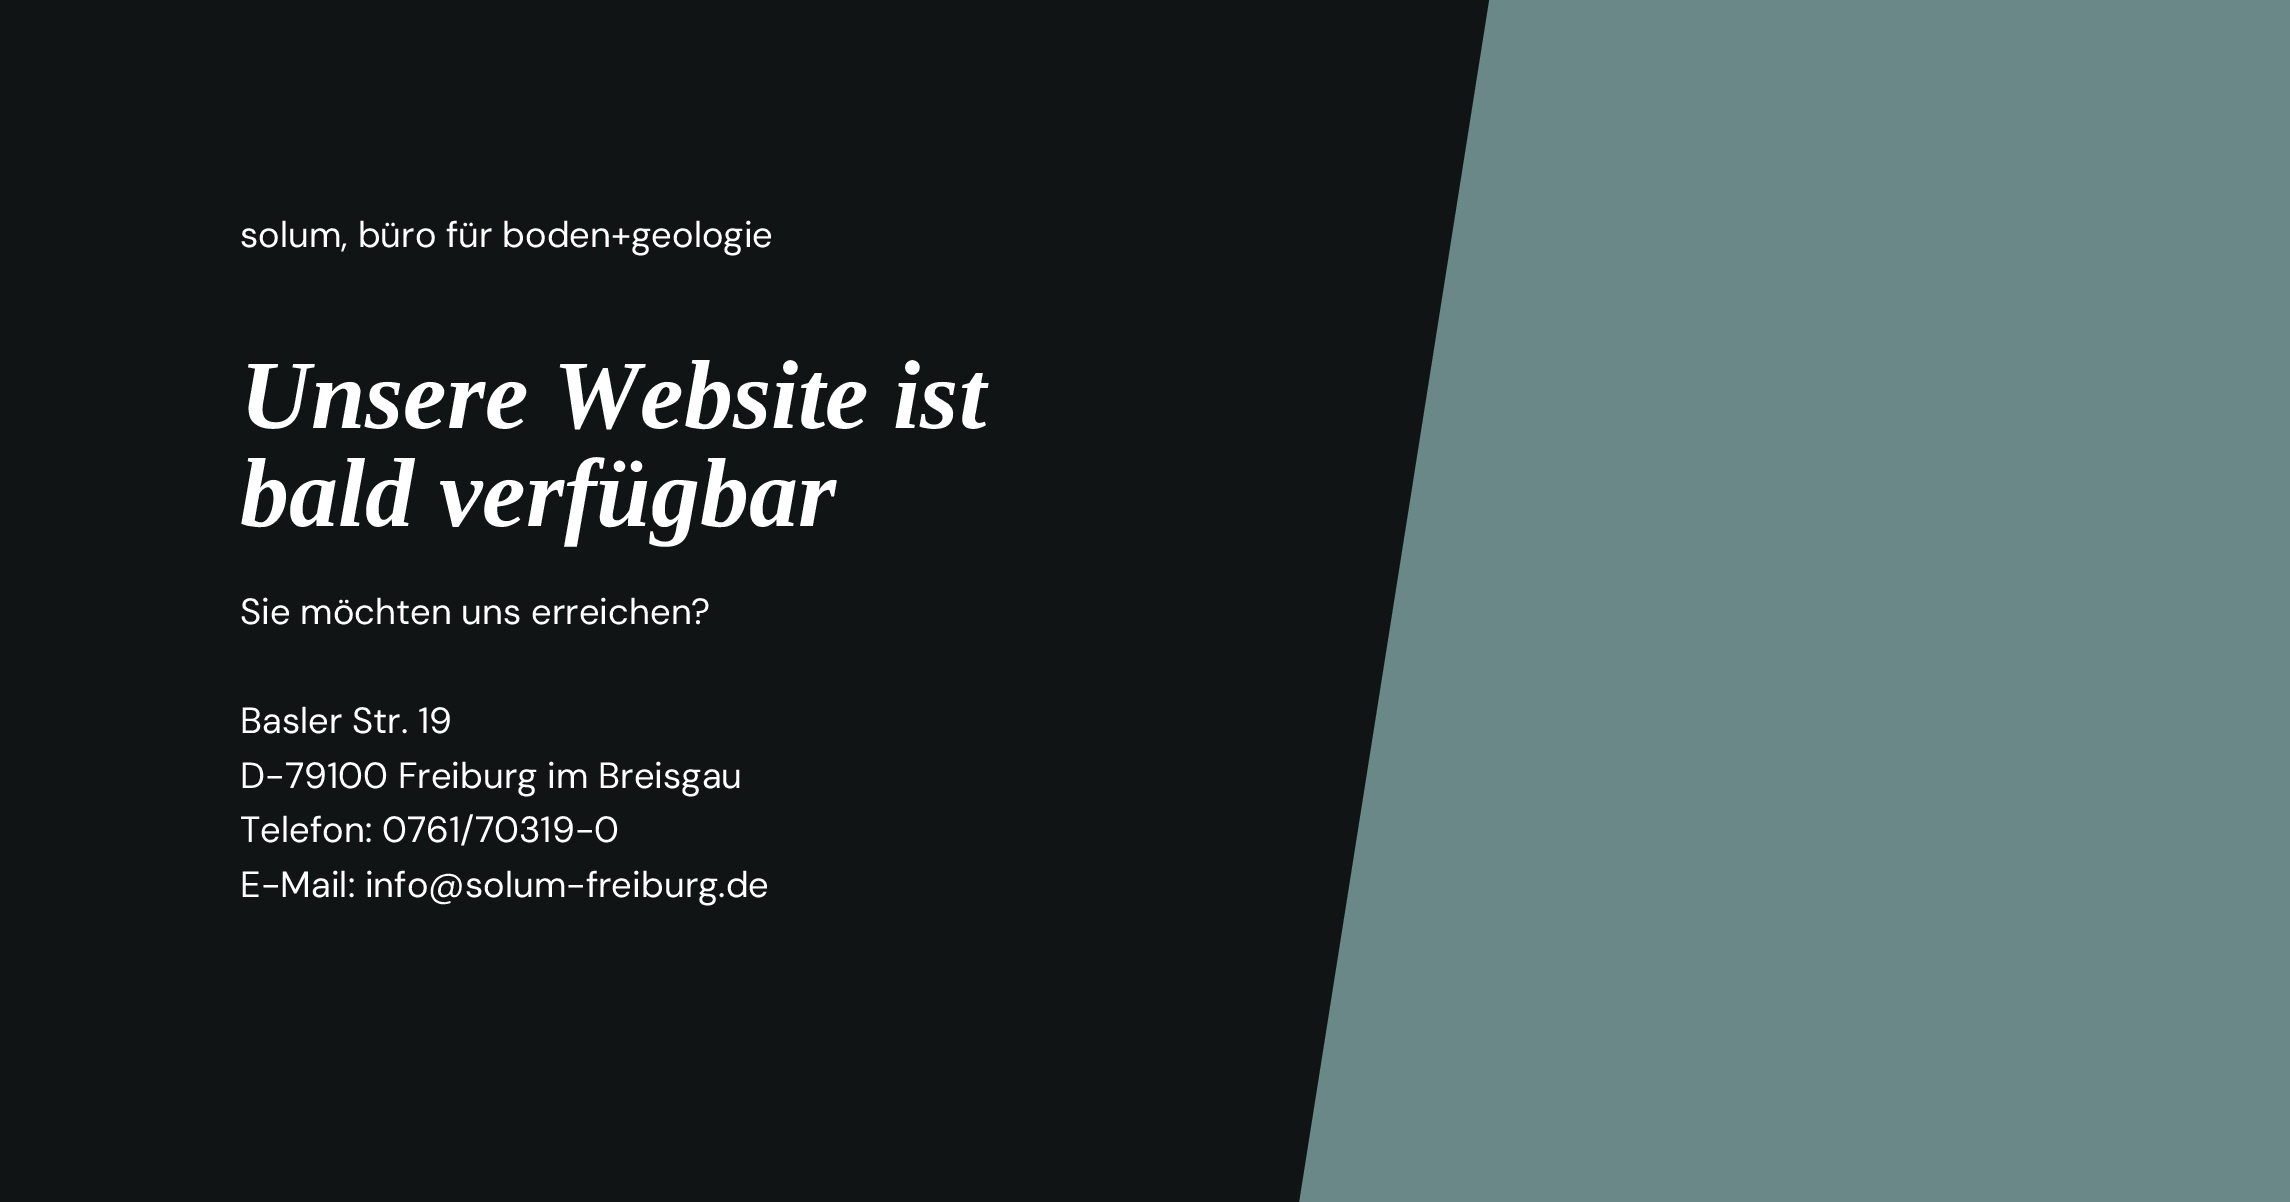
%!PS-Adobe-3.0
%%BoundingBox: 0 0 2290 1202
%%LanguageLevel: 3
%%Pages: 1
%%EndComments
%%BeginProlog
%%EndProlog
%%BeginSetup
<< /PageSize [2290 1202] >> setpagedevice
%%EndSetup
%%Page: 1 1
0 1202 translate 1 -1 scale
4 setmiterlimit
0.416 0.533 0.533 setrgbcolor
0 0 2290 1202 rectfill
0.063 0.078 0.078 setrgbcolor
newpath 0 0 moveto 1489 0 lineto 1299 1202 lineto -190 1202 lineto closepath fill
/DMSans-Regular [36.4 0 0 -36.4 0 0] selectfont
1 setgray
240 247 moveto (solum, büro für boden+geologie) show
/Tinos-BoldItalic [98 0 0 -98 0 0] selectfont
240 428 moveto (Unsere Website ist) show
240 526 moveto (bald verfügbar) show
/DMSans-Regular [36.4 0 0 -36.4 0 0] selectfont
240 624 moveto (Sie möchten uns erreichen?) show
240 733 moveto (Basler Str. 19) show
240 788 moveto (D-79100 Freiburg im Breisgau) show
240 842 moveto (Telefon: 0761/70319-0) show
240 897 moveto (E-Mail: info@solum-freiburg.de) show
showpage
%%EOF
